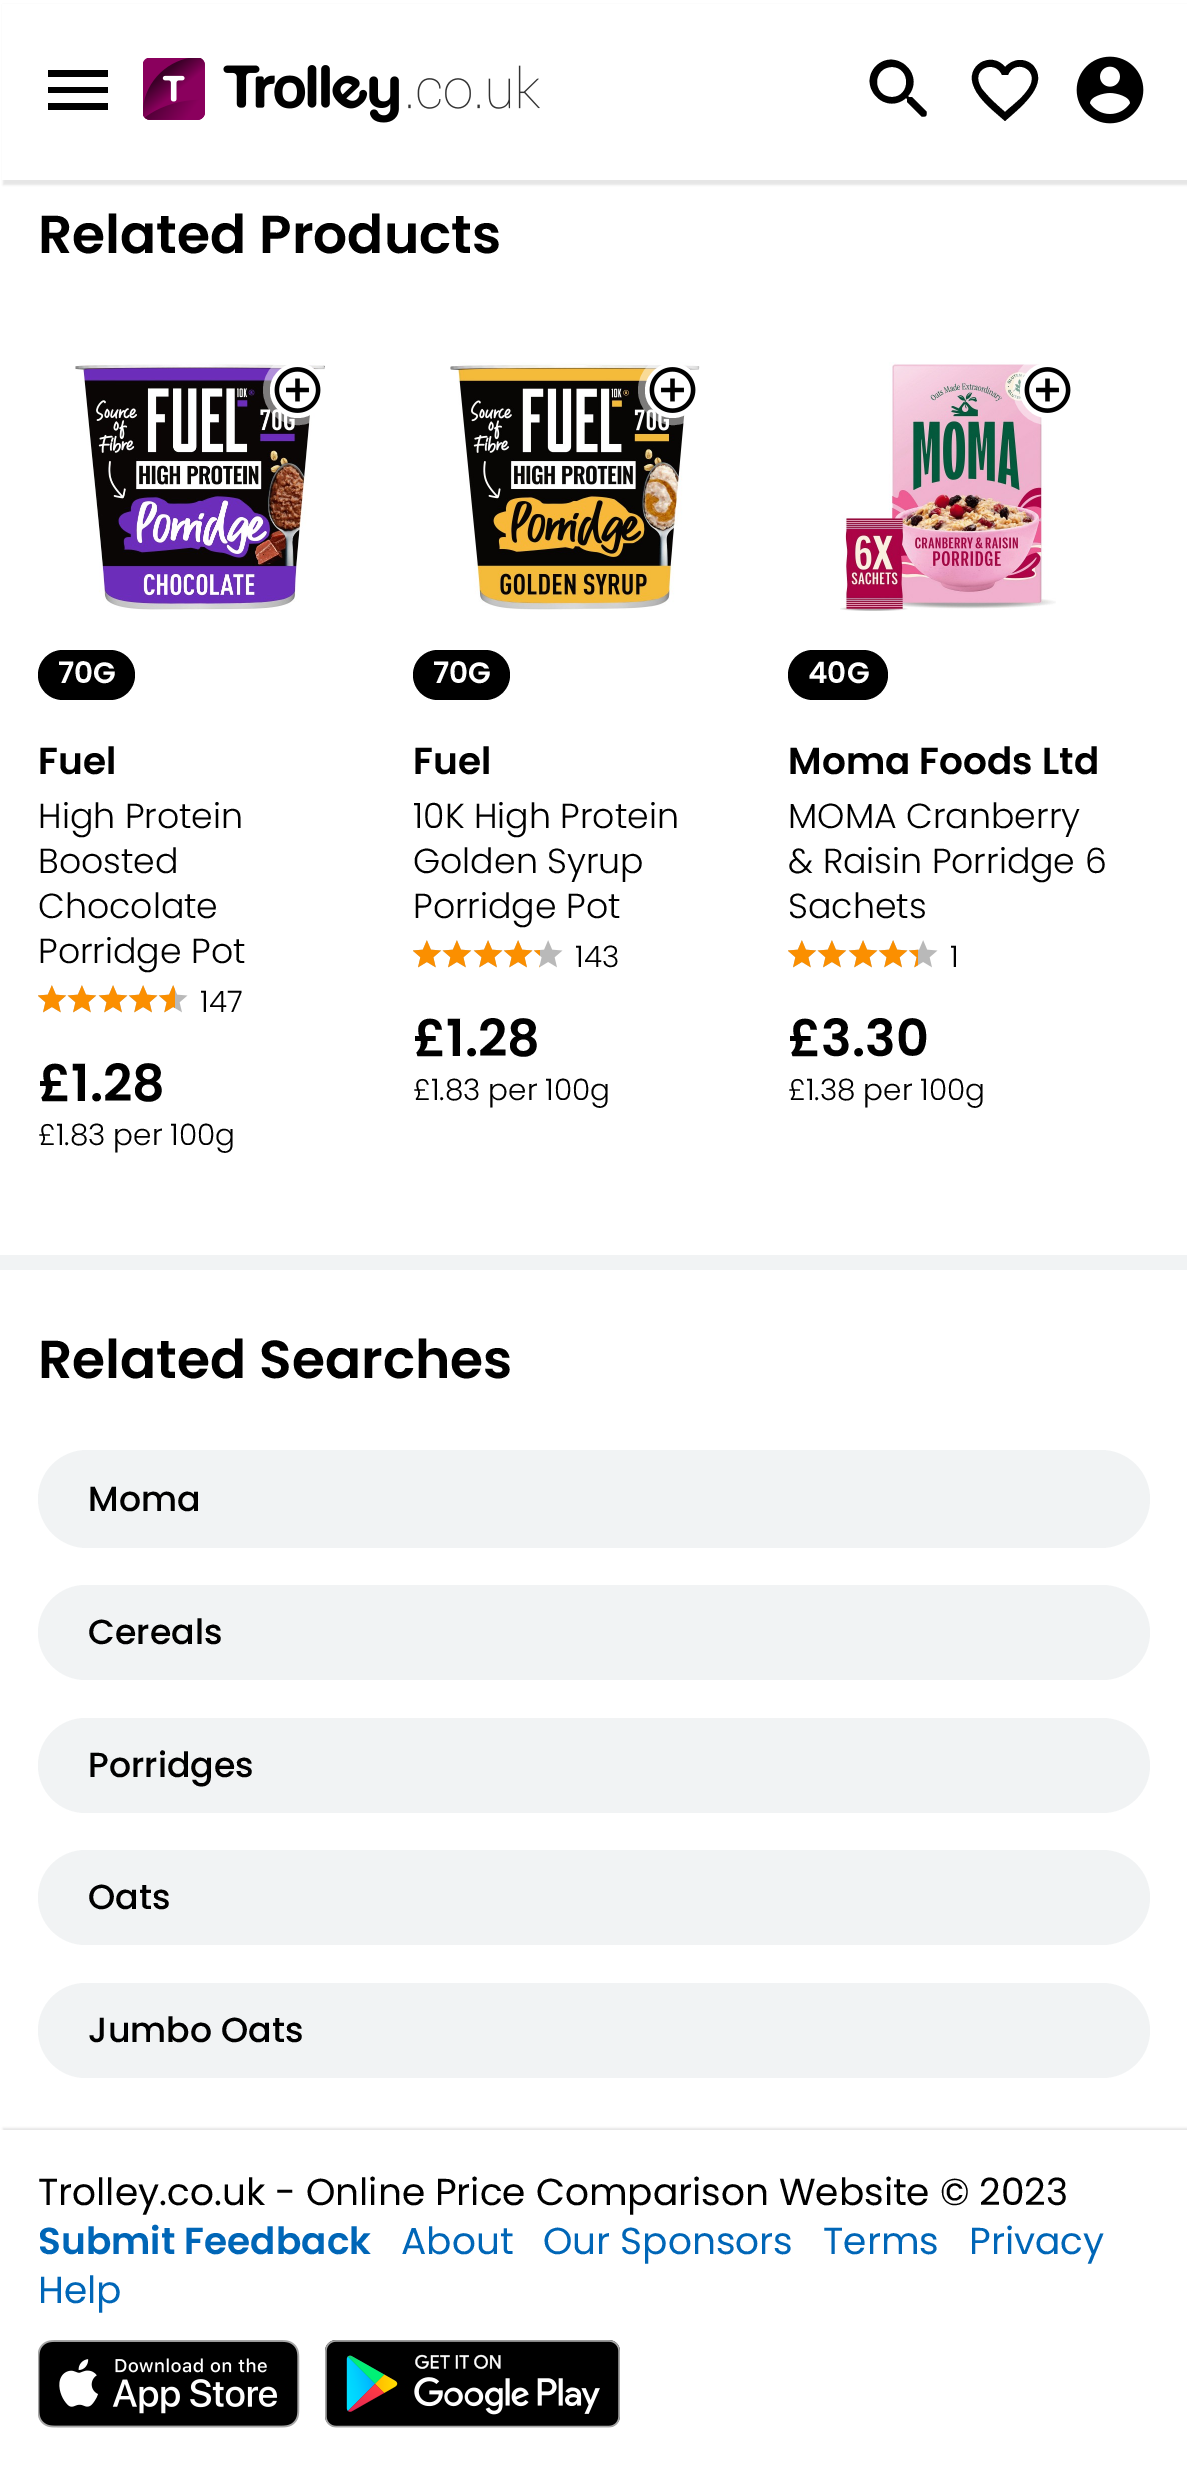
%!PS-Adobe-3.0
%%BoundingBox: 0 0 1187 2473
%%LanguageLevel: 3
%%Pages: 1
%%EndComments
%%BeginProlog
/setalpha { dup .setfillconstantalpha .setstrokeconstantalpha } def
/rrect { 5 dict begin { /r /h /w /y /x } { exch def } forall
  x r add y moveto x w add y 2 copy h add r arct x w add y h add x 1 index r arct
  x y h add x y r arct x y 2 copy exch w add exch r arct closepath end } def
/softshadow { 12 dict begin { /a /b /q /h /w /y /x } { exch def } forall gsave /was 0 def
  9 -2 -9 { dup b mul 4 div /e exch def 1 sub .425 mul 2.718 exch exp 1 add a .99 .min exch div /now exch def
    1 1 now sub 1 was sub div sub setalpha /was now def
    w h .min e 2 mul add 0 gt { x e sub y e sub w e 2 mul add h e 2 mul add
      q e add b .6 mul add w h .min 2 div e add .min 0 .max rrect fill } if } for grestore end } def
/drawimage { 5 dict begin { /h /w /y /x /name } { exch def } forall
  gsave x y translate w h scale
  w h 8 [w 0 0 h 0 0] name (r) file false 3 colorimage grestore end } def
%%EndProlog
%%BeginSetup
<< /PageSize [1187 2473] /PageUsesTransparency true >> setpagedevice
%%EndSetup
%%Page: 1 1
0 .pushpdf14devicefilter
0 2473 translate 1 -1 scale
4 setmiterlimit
1 setgray
0 0 1187 2473 rectfill
0.898 setgray
3 5 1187 180 0 1 1 softshadow
1 setgray
2 4 1185 176 rectfill
0 setgray
newpath 48 110 moveto 108 110 lineto 108 103 lineto 48 103 lineto closepath 48 93 moveto 108 93 lineto 108 87 lineto 48 87 lineto closepath 48 70 moveto 48 77 lineto 108 77 lineto 108 70 lineto closepath fill
(images/1.raw) 143 58 397 65 drawimage
newpath 912 97 moveto 909 97 lineto 908 96 lineto 926 75 896 47 876 66 curveto 857 86 885 116 906 98 curveto 907 99 lineto 907 102 lineto 921 116 lineto 922 117 924 117 926 116 curveto 927 114 927 112 926 111 curveto closepath 892 97 moveto 872 97 872 67 892 67 curveto 911 67 911 97 892 97 curveto closepath fill
newpath 1020 60 moveto 1014 60 1009 63 1005 67 curveto 991 50 964 66 974 87 curveto 979 100 995 112 1005 121 curveto 1017 110 1048 87 1035 68 curveto 1032 63 1026 60 1020 60 curveto closepath 1005 112 moveto 997 105 989 98 982 89 curveto 968 68 996 59 1002 75 curveto 1008 75 lineto 1014 59 1039 68 1030 86 curveto 1025 96 1014 104 1005 112 curveto closepath fill
(images/2.raw) 1076 56 68 68 drawimage
0.945 0.953 0.957 setrgbcolor
0 1255 1187 15 rectfill
(images/4.raw) 75 362 250 248 drawimage
0.47 setalpha
1 setgray
8 setlinewidth
newpath 298 390 31 0 360 arc closepath stroke
1 setalpha
newpath 297.5 390.5 27.5 0 360 arc closepath fill
(images/3.raw) 274 367 47 46 drawimage
0 setgray
38 650 97 50 25 rrect fill
(images/5.raw) 38 985 150 28 drawimage
(images/6.raw) 38 985 137 28 drawimage
(images/8.raw) 450 362 250 248 drawimage
0.47 setalpha
1 setgray
newpath 673 390 31 0 360 arc closepath stroke
1 setalpha
newpath 672.5 390.5 27.5 0 360 arc closepath fill
(images/7.raw) 649 367 47 46 drawimage
0 setgray
413 650 97 50 25 rrect fill
(images/5.raw) 413 940 150 28 drawimage
(images/9.raw) 413 940 127 28 drawimage
(images/11.raw) 840 362 216 249 drawimage
0.47 setalpha
1 setgray
newpath 1048 390 31 0 360 arc closepath stroke
1 setalpha
newpath 1047.5 390.5 27.5 0 360 arc closepath fill
(images/10.raw) 1024 367 47 46 drawimage
0 setgray
788 650 100 50 25 rrect fill
(images/5.raw) 788 940 150 28 drawimage
(images/12.raw) 788 940 130 28 drawimage
0.945 0.953 0.957 setrgbcolor
38 1450 1112 98 49 rrect fill
38 1585 1112 95 47.5 rrect fill
38 1718 1112 95 47.5 rrect fill
38 1850 1112 95 47.5 rrect fill
38 1983 1112 95 47.5 rrect fill
gsave
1 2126 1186 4 rectclip
0.898 setgray
3 2128 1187 345 0 1 1 softshadow
grestore
(images/13.raw) 38 2340 262 88 drawimage
(images/14.raw) 325 2340 295 88 drawimage
/Poppins-SemiBold [53.5 0 0 -53.5 0 0] selectfont
0 setgray
38 253 moveto (Related Products) show
/Poppins-SemiBold [29.5 0 0 -29.5 0 0] selectfont
1 setgray
58 683 moveto (70G) show
/Poppins-SemiBold [37.5 0 0 -37.5 0 0] selectfont
0 setgray
38 774 moveto (Fuel) show
/Poppins-Light [34.75 0 0 -34.75 0 0] selectfont
38 828 moveto (High Protein) show
38 873 moveto (Boosted) show
38 918 moveto (Chocolate) show
38 963 moveto (Porridge Pot) show
/Poppins-Light [29.5 0 0 -29.5 0 0] selectfont
200 1012 moveto (147) show
/Poppins-SemiBold [51 0 0 -51 0 0] selectfont
38 1101 moveto (£1.28) show
/Poppins-Light [29.5 0 0 -29.5 0 0] selectfont
38 1145 moveto (£1.83 per 100g) show
/Poppins-SemiBold [29.5 0 0 -29.5 0 0] selectfont
1 setgray
433 683 moveto (70G) show
/Poppins-SemiBold [37.5 0 0 -37.5 0 0] selectfont
0 setgray
413 774 moveto (Fuel) show
/Poppins-Light [34.75 0 0 -34.75 0 0] selectfont
413 828 moveto (10K High Protein) show
413 873 moveto (Golden Syrup) show
413 918 moveto (Porridge Pot) show
/Poppins-Light [29.5 0 0 -29.5 0 0] selectfont
575 967 moveto (143) show
/Poppins-SemiBold [51 0 0 -51 0 0] selectfont
413 1056 moveto (£1.28) show
/Poppins-Light [29.5 0 0 -29.5 0 0] selectfont
413 1100 moveto (£1.83 per 100g) show
/Poppins-SemiBold [29.5 0 0 -29.5 0 0] selectfont
1 setgray
808 683 moveto (40G) show
/Poppins-SemiBold [37.5 0 0 -37.5 0 0] selectfont
0 setgray
788 774 moveto (Moma Foods Ltd) show
/Poppins-Light [34.75 0 0 -34.75 0 0] selectfont
788 828 moveto (MOMA Cranberry) show
788 873 moveto (& Raisin Porridge 6) show
788 918 moveto (Sachets) show
/Poppins-Light [29.5 0 0 -29.5 0 0] selectfont
950 967 moveto (1) show
/Poppins-SemiBold [51 0 0 -51 0 0] selectfont
788 1056 moveto (£3.30) show
/Poppins-Light [29.5 0 0 -29.5 0 0] selectfont
788 1100 moveto (£1.38 per 100g) show
/Poppins-SemiBold [53.5 0 0 -53.5 0 0] selectfont
38 1378 moveto (Related Searches) show
/Poppins-Medium [34.75 0 0 -34.75 0 0] selectfont
88 1511 moveto (Moma) show
88 1644 moveto (Cereals) show
88 1777 moveto (Porridges) show
88 1909 moveto (Oats) show
88 2042 moveto (Jumbo Oats) show
/Poppins-Regular [37.5 0 0 -37.5 0 0] selectfont
38 2205 moveto (Trolley.co.uk - Online Price Comparison Website © 2023) show
/Poppins-SemiBold [37.5 0 0 -37.5 0 0] selectfont
0 0.4 0.718 setrgbcolor
38 2254 moveto (Submit Feedback) show
/Poppins-Regular [37.5 0 0 -37.5 0 0] selectfont
401 2254 moveto (About) show
543 2254 moveto (Our Sponsors) show
823 2254 moveto (Terms) show
969 2254 moveto (Privacy) show
38 2303 moveto (Help) show
.poppdf14devicefilter showpage
%%EOF
